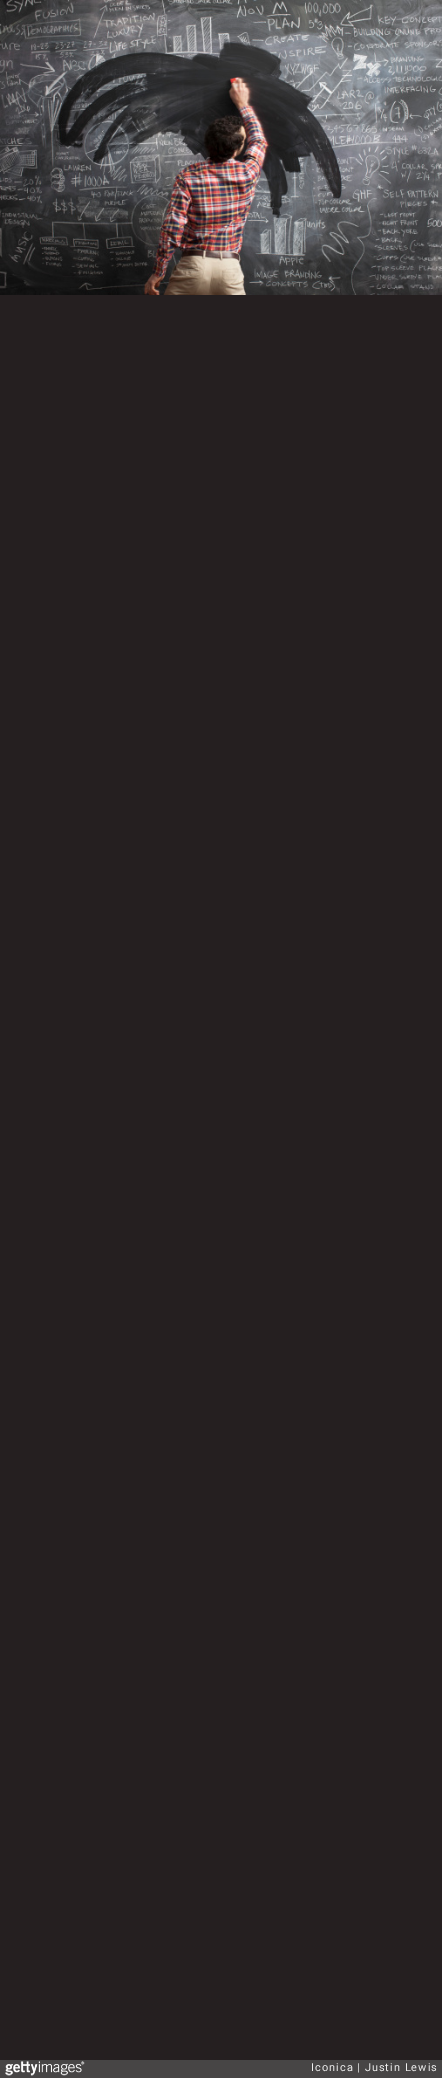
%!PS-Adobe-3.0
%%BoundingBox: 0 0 442 2078
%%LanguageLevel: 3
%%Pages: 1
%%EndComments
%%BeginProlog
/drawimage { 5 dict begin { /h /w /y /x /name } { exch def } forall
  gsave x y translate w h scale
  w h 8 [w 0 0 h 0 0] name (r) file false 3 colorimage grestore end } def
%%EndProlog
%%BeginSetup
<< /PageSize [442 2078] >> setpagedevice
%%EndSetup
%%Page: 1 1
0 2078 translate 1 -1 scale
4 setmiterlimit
0.145 0.122 0.125 setrgbcolor
0 0 442 2078 rectfill
(images/1.raw) 0 0 442 295 drawimage
0.278 0.271 0.271 setrgbcolor
0 2060 442 18 rectfill
(images/2.raw) 5 2061 80 15 drawimage
/Roboto-Regular [11 0 0 -11 0 0] selectfont
0.933 setgray
311 2071 moveto 1 0 (Iconica | Justin Lewis) ashow
showpage
%%EOF
